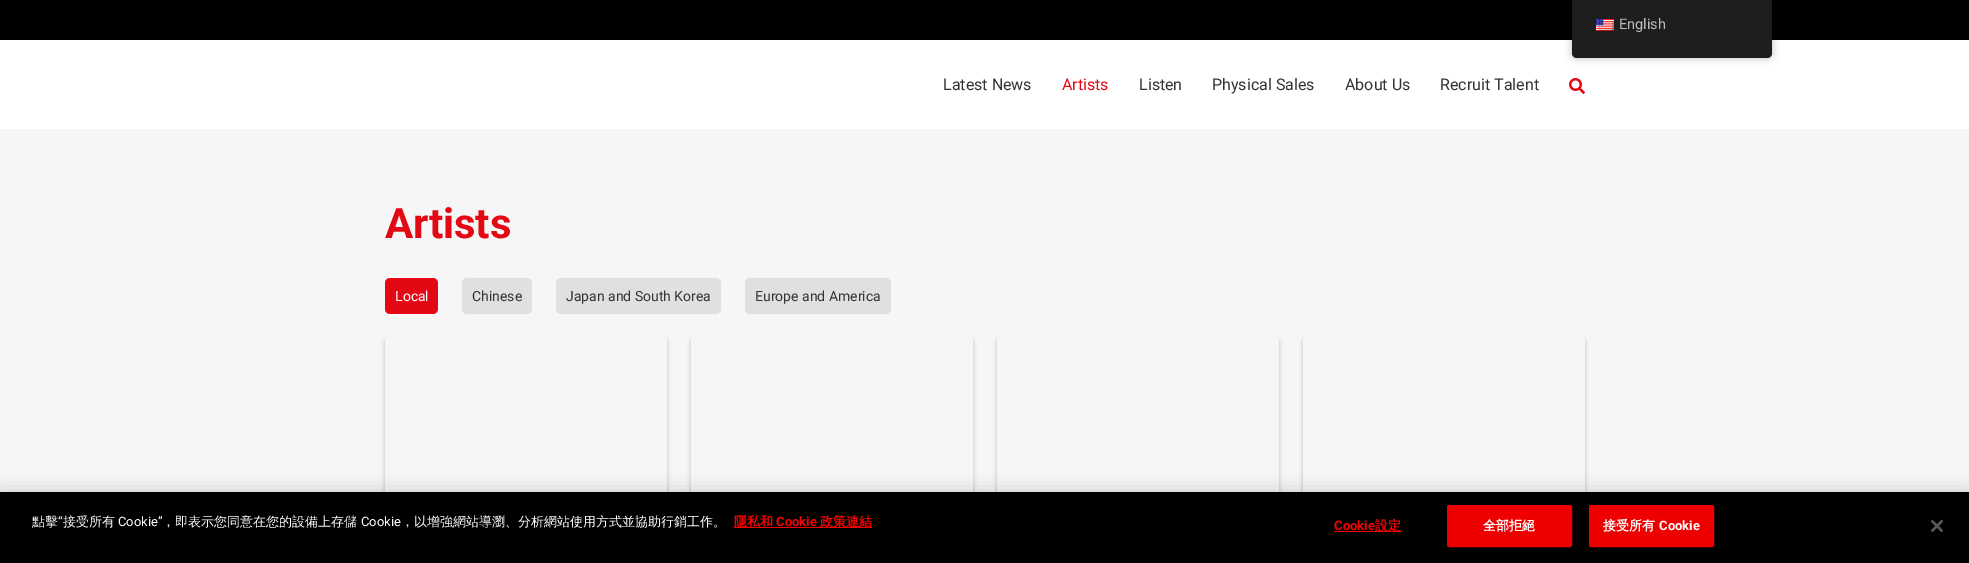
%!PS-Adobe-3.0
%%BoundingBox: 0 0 1969 563
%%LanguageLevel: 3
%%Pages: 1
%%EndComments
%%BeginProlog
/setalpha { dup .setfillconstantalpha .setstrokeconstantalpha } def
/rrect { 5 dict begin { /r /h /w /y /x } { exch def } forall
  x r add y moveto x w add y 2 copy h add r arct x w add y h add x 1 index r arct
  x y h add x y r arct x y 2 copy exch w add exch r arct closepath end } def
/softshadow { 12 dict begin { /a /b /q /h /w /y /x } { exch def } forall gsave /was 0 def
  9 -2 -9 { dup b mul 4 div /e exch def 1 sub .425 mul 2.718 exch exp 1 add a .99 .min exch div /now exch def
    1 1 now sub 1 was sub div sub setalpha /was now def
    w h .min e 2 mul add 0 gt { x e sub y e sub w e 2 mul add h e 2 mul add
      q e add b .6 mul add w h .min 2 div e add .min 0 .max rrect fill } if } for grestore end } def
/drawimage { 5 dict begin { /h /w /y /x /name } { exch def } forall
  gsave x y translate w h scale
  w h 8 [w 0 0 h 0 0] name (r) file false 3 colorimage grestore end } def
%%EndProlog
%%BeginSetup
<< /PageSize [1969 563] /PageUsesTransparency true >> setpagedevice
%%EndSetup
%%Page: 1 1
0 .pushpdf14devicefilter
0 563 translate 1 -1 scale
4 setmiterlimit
0.965 setgray
0 0 1969 563 rectfill
0 setgray
0 0 1969 40 rectfill
1 setgray
0 40 1969 89 rectfill
0 setgray
1572 0 200 58 5 4 0.25 softshadow
0.118 setgray
newpath 1572 0 moveto 1772 0 lineto 1772 53 lineto 1772 56 1770 58 1767 58 curveto 1577 58 lineto 1574 58 1572 56 1572 53 curveto closepath fill
(images/1.raw) 1596 19 18 12 drawimage
(images/2.raw) 1569 78 16 16 drawimage
0.89 0.031 0.075 setrgbcolor
385 278 53 36 5 rrect fill
0.878 setgray
462 278 70 36 5 rrect fill
556 278 165 36 5 rrect fill
745 278 146 36 5 rrect fill
gsave
newpath 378 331 moveto 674 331 lineto 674 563 lineto 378 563 lineto closepath 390 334 moveto 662 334 lineto 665 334 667 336 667 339 curveto 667 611 lineto 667 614 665 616 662 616 curveto 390 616 lineto 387 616 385 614 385 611 curveto 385 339 lineto 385 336 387 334 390 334 curveto closepath eoclip newpath
0 setgray
385 338 282 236 5 2 0.25 softshadow
grestore
gsave
newpath 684 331 moveto 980 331 lineto 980 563 lineto 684 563 lineto closepath 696 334 moveto 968 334 lineto 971 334 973 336 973 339 curveto 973 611 lineto 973 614 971 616 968 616 curveto 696 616 lineto 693 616 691 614 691 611 curveto 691 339 lineto 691 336 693 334 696 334 curveto closepath eoclip newpath
0 setgray
691 338 282 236 5 2 0.25 softshadow
grestore
gsave
newpath 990 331 moveto 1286 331 lineto 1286 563 lineto 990 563 lineto closepath 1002 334 moveto 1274 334 lineto 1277 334 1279 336 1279 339 curveto 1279 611 lineto 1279 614 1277 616 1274 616 curveto 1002 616 lineto 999 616 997 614 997 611 curveto 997 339 lineto 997 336 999 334 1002 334 curveto closepath eoclip newpath
0 setgray
997 338 282 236 5 2 0.25 softshadow
grestore
gsave
newpath 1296 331 moveto 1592 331 lineto 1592 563 lineto 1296 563 lineto closepath 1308 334 moveto 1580 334 lineto 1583 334 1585 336 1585 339 curveto 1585 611 lineto 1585 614 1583 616 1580 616 curveto 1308 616 lineto 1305 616 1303 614 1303 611 curveto 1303 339 lineto 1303 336 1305 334 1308 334 curveto closepath eoclip newpath
0 setgray
1303 338 282 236 5 2 0.25 softshadow
grestore
0 setgray
0 492 1969 71 0 9 0.2 softshadow
0 492 1969 71 rectfill
0.976 0 0 setrgbcolor
734 527 138 1 rectfill
1334 531 67 1 rectfill
0.933 0 0 setrgbcolor
1447.5 505.5 124 41 1.5 rrect gsave fill grestore
stroke
1589.5 505.5 124 41 1.5 rrect gsave fill grestore
stroke
(images/3.raw) 1931 520 12 12 drawimage
/Roboto-Regular [14.5 0 0 -14.5 0 0] selectfont
0.741 setgray
1619 29 moveto (English) show
/Roboto-Regular [16 0 0 -16 0 0] selectfont
0.2 setgray
943 90 moveto (Latest News) show
0.89 0.031 0.075 setrgbcolor
1062 90 moveto (Artists) show
0.2 setgray
1139 90 moveto (Listen) show
1212 90 moveto (Physical Sales) show
1345 90 moveto (About Us) show
1440 90 moveto (Recruit Talent) show
/Roboto-Bold [42 0 0 -42 0 0] selectfont
0.89 0.031 0.075 setrgbcolor
385 238 moveto (Artists) show
/Roboto-Regular [14 0 0 -14 0 0] selectfont
1 setgray
395 301 moveto (Local) show
0.2 setgray
472 301 moveto (Chinese) show
566 301 moveto (Japan and South Korea) show
755 301 moveto (Europe and America) show
/WenQuanYiZenHei-Medium [13 0 0 -13 0 0] selectfont
1 setgray
32 526 moveto (點擊) show
/Roboto-Regular [13 0 0 -13 0 0] selectfont
58 526 moveto (“) show
/WenQuanYiZenHei-Medium [13 0 0 -13 0 0] selectfont
63 526 moveto (接受所有) show
/Roboto-Regular [13 0 0 -13 0 0] selectfont
118 526 moveto (Cookie”) show
/WenQuanYiZenHei-Medium [13 0 0 -13 0 0] selectfont
162 526 moveto (，即表示您同意在您的設備上存儲) show
/Roboto-Regular [13 0 0 -13 0 0] selectfont
361 526 moveto (Cookie) show
/WenQuanYiZenHei-Medium [13 0 0 -13 0 0] selectfont
401 526 moveto (，以增強網站導瀏、分析網站使用方式並協助行銷工作。) show
/WenQuanYiZenHei-Bold [13 0 0 -13 0 0] selectfont
0.976 0 0 setrgbcolor
734 526 moveto (隱私和) show
/Roboto-Bold [13 0 0 -13 0 0] selectfont
776 526 moveto (Cookie) show
/WenQuanYiZenHei-Bold [13 0 0 -13 0 0] selectfont
820 526 moveto (政策連結) show
/Roboto-Bold [13 0 0 -13 0 0] selectfont
1334 530 moveto (Cookie) show
/WenQuanYiZenHei-Bold [13 0 0 -13 0 0] selectfont
1375 530 moveto (設定) show
1 setgray
1483 530 moveto (全部拒絕) show
1603 530 moveto (接受所有) show
/Roboto-Bold [13 0 0 -13 0 0] selectfont
1659 530 moveto (Cookie) show
.poppdf14devicefilter showpage
%%EOF
